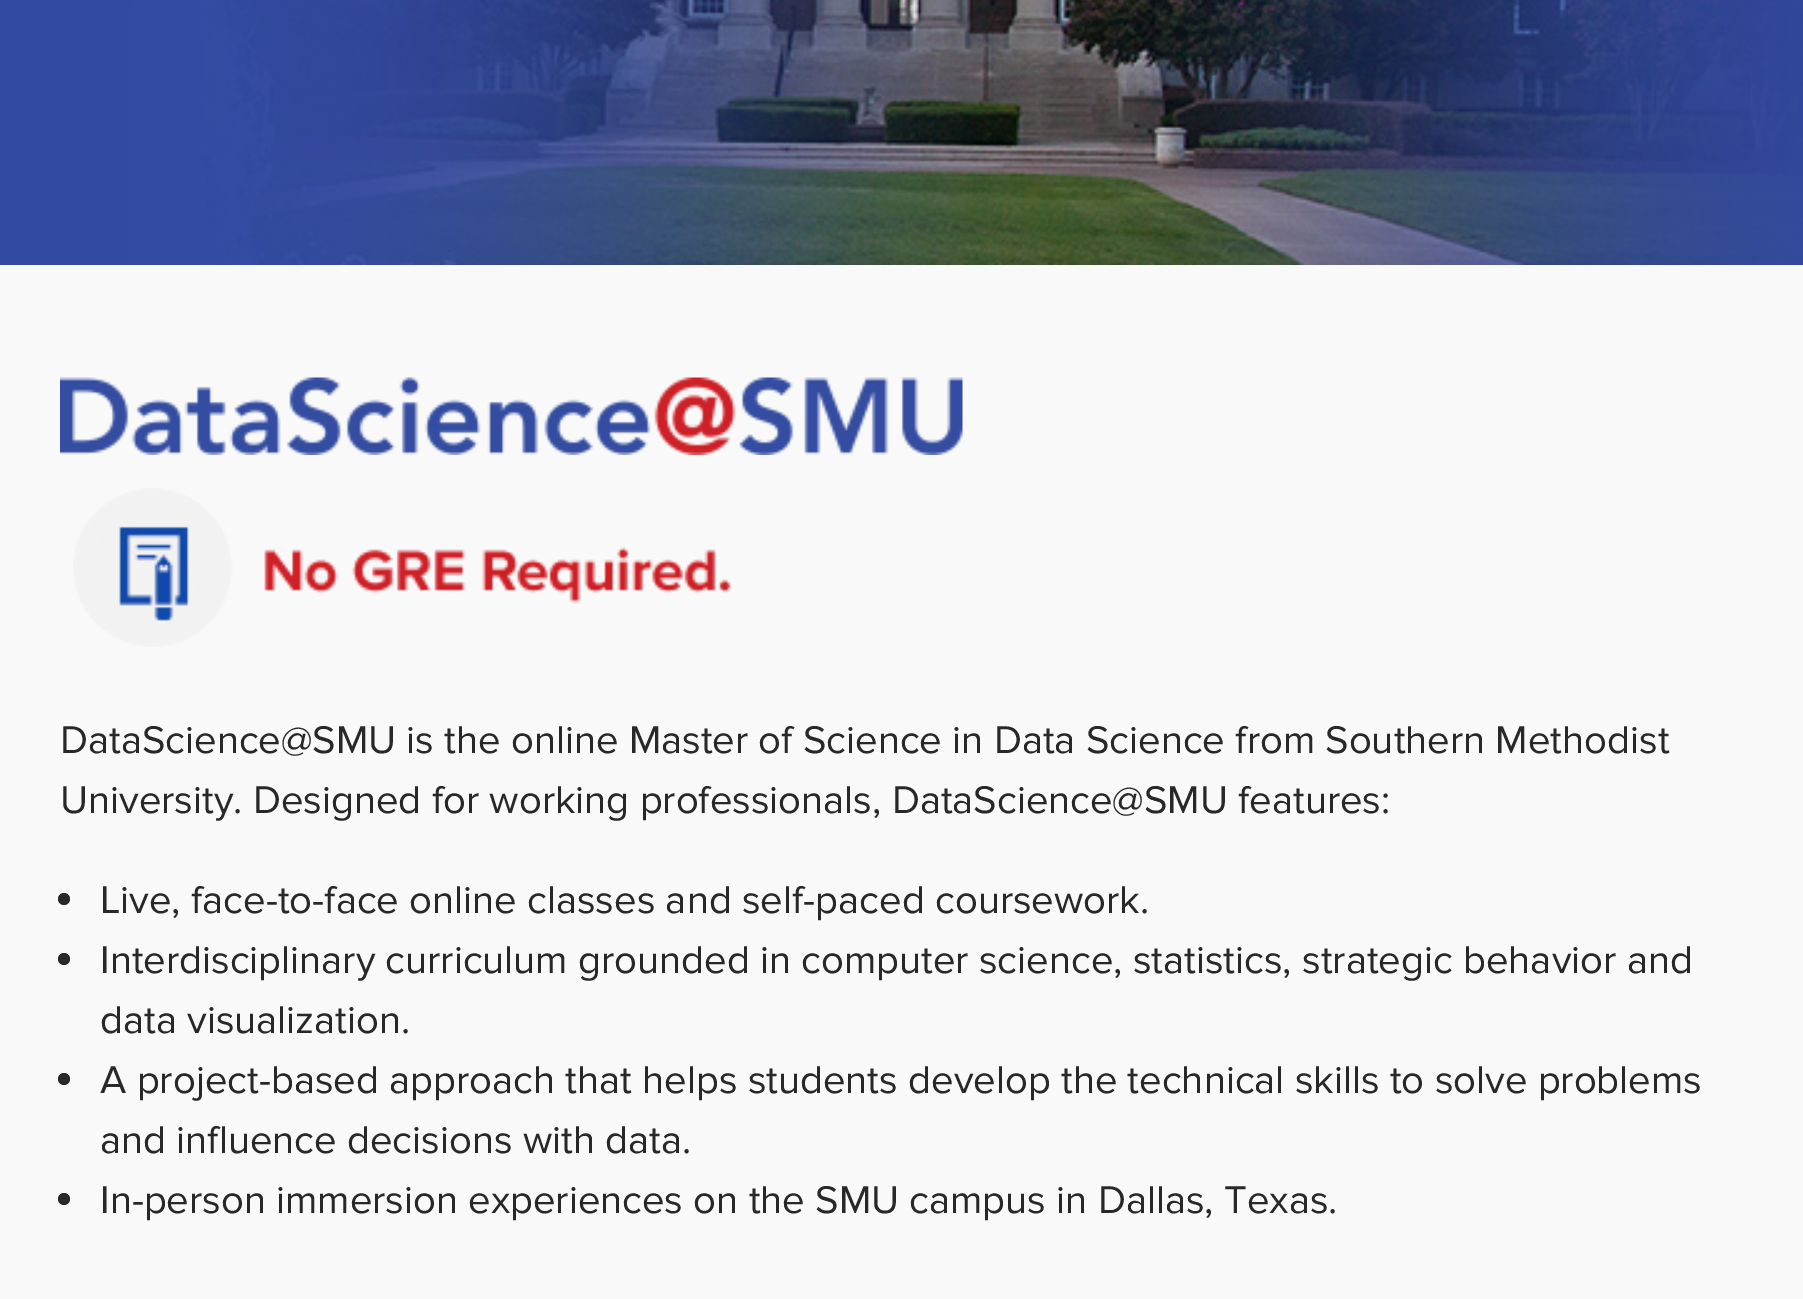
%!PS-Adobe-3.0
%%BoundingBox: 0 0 1803 1299
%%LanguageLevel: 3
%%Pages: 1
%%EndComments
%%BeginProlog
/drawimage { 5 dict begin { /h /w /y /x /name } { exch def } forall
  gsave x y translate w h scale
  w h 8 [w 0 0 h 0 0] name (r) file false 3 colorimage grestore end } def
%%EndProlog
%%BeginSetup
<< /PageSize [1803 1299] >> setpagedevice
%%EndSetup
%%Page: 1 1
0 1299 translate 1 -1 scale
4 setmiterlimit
0.976 setgray
0 0 1803 1299 rectfill
(images/1.raw) 0 0 1803 265 drawimage
(images/2.raw) 60 377 903 78 drawimage
(images/3.raw) 73 488 658 159 drawimage
0.157 setgray
newpath 64 899 6 0 360 arc closepath fill
newpath 64 959 6 0 360 arc closepath fill
newpath 64 1079 6 0 360 arc closepath fill
newpath 64 1199 6 0 360 arc closepath fill
/ProximaNova-Regular [40 0 0 -40 0 0] selectfont
60 753 moveto (DataScience@SMU is the online Master of Science in Data Science from Southern Methodist) show
60 813 moveto (University. Designed for working professionals, DataScience@SMU features:) show
100 913 moveto (Live, face-to-face online classes and self-paced coursework.) show
100 973 moveto (Interdisciplinary curriculum grounded in computer science, statistics, strategic behavior and) show
100 1033 moveto (data visualization.) show
100 1093 moveto (A project-based approach that helps students develop the technical skills to solve problems) show
100 1153 moveto (and influence decisions with data.) show
100 1213 moveto (In-person immersion experiences on the SMU campus in Dallas, Texas.) show
showpage
%%EOF
